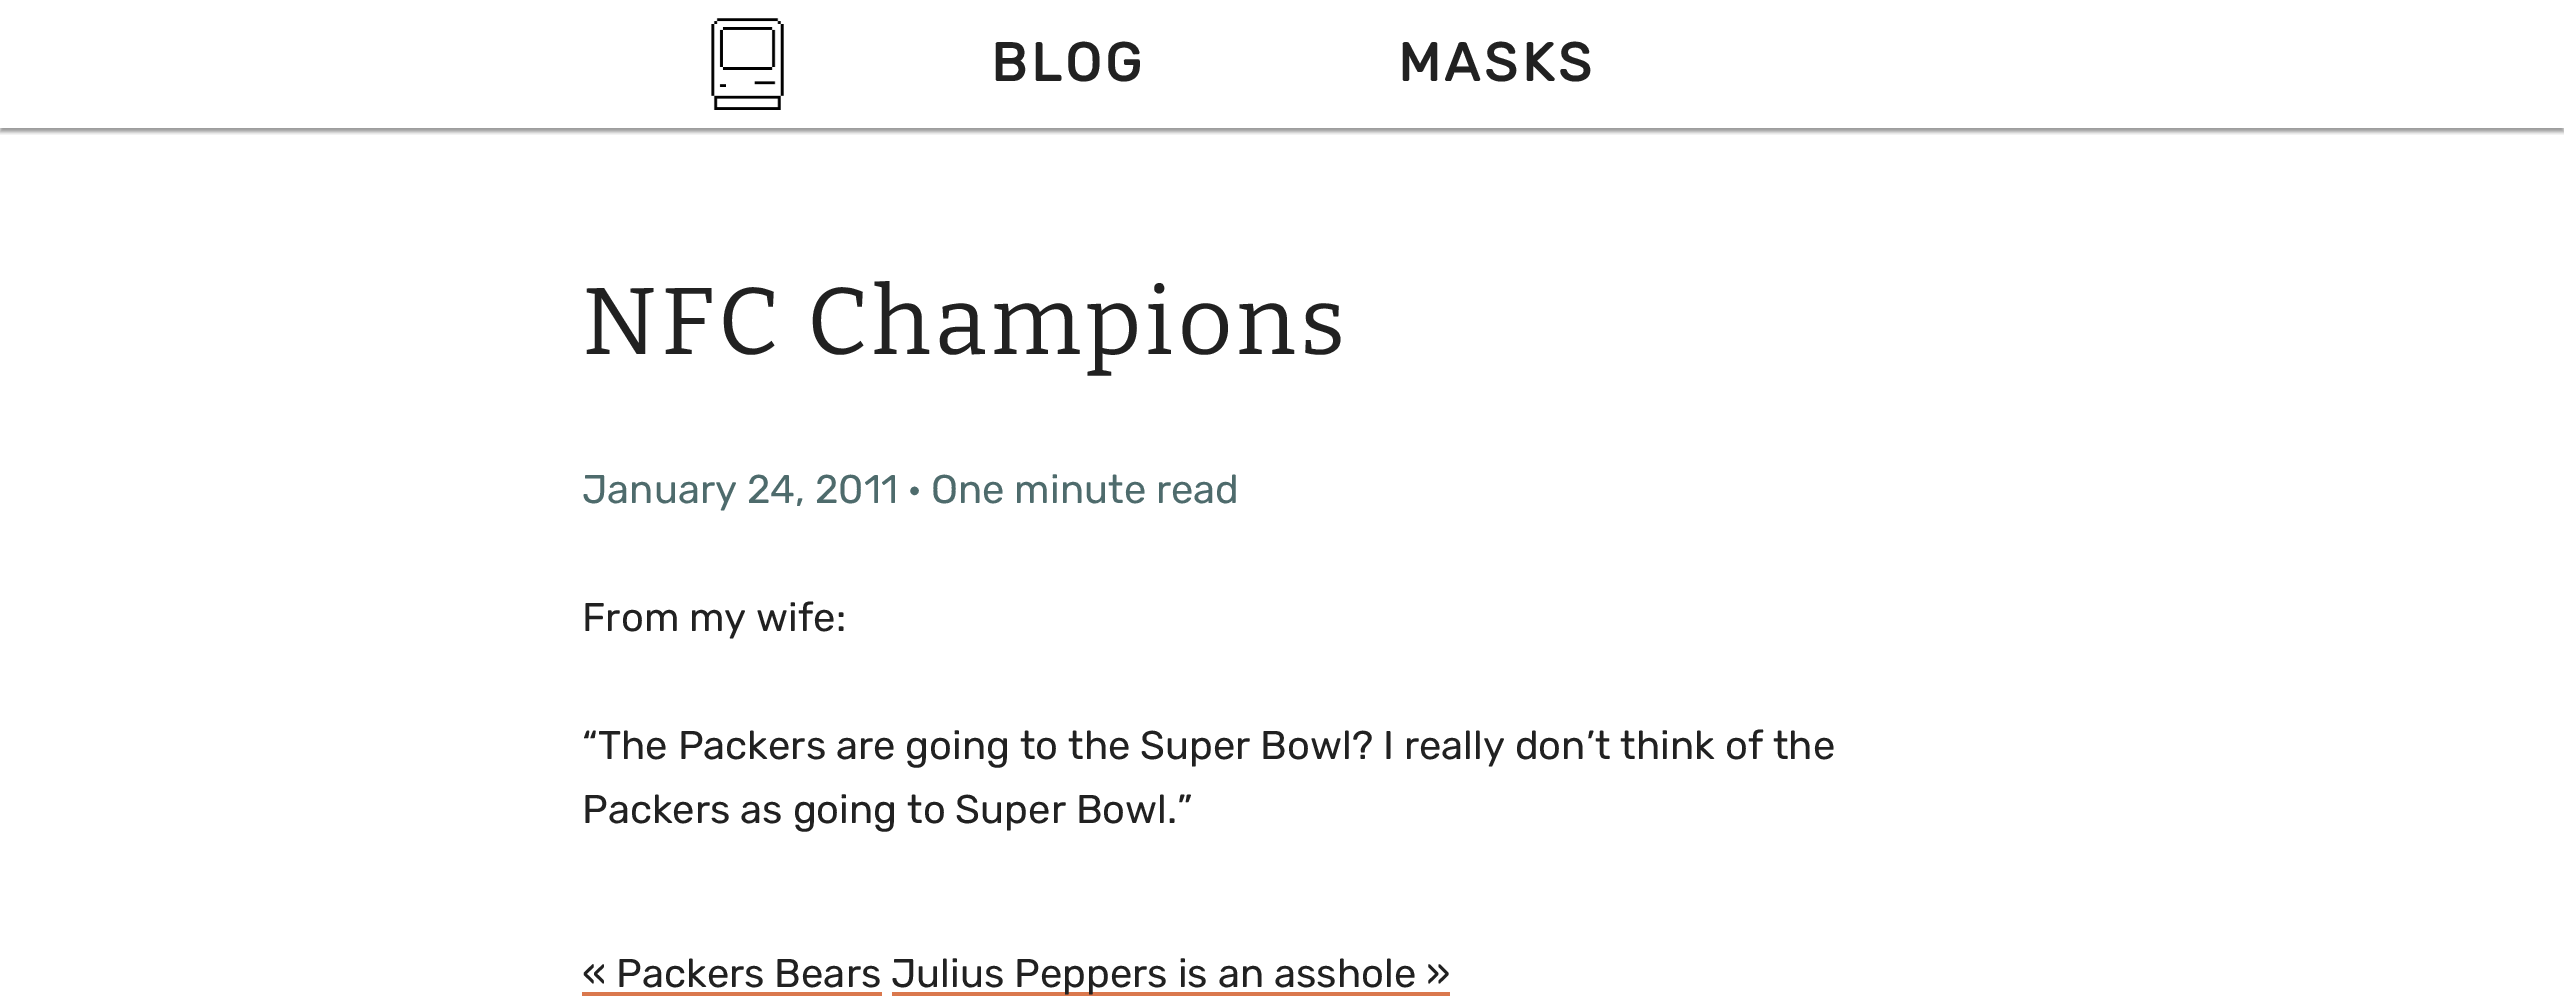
%!PS-Adobe-3.0
%%BoundingBox: 0 0 2564 1002
%%LanguageLevel: 3
%%Pages: 1
%%EndComments
%%BeginProlog
/setalpha { dup .setfillconstantalpha .setstrokeconstantalpha } def
/rrect { 5 dict begin { /r /h /w /y /x } { exch def } forall
  x r add y moveto x w add y 2 copy h add r arct x w add y h add x 1 index r arct
  x y h add x y r arct x y 2 copy exch w add exch r arct closepath end } def
/softshadow { 12 dict begin { /a /b /q /h /w /y /x } { exch def } forall gsave /was 0 def
  9 -2 -9 { dup b mul 4 div /e exch def 1 sub .425 mul 2.718 exch exp 1 add a .99 .min exch div /now exch def
    1 1 now sub 1 was sub div sub setalpha /was now def
    w h .min e 2 mul add 0 gt { x e sub y e sub w e 2 mul add h e 2 mul add
      q e add b .6 mul add w h .min 2 div e add .min 0 .max rrect fill } if } for grestore end } def
/drawimage { 5 dict begin { /h /w /y /x /name } { exch def } forall
  gsave x y translate w h scale
  w h 8 [w 0 0 h 0 0] name (r) file false 3 colorimage grestore end } def
%%EndProlog
%%BeginSetup
<< /PageSize [2564 1002] /PageUsesTransparency true >> setpagedevice
%%EndSetup
%%Page: 1 1
0 .pushpdf14devicefilter
0 1002 translate 1 -1 scale
4 setmiterlimit
1 setgray
0 0 2564 1002 rectfill
gsave
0 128 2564 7 rectclip
0 setgray
0 4 2564 128 0 2 0.4 softshadow
grestore
(images/1.raw) 711 18 73 92 drawimage
0.855 0.471 0.302 setrgbcolor
582 992 300 4 rectfill
892 992 558 4 rectfill
/Rubik-Bold [53.5 0 0 -53.5 0 0] selectfont
0.129 setgray
991 81 moveto 4 0 (BLOG) ashow
1398 81 moveto 4 0 (MASKS) ashow
/Bitter-Thin [94.75 0 0 -94.75 0 0] selectfont
582 354 moveto 4 0 (NFC Champions) ashow
/Rubik-Light [40 0 0 -40 0 0] selectfont
0.306 0.42 0.424 setrgbcolor
582 503 moveto (January 24, 2011 · One minute read) show
0.129 setgray
582 631 moveto (From my wife:) show
582 759 moveto (“The Packers are going to the Super Bowl? I really don’t think of the) show
582 823 moveto (Packers as going to Super Bowl.”) show
582 987 moveto (« Packers Bears) show
891 987 moveto (Julius Peppers is an asshole ») show
.poppdf14devicefilter showpage
%%EOF
